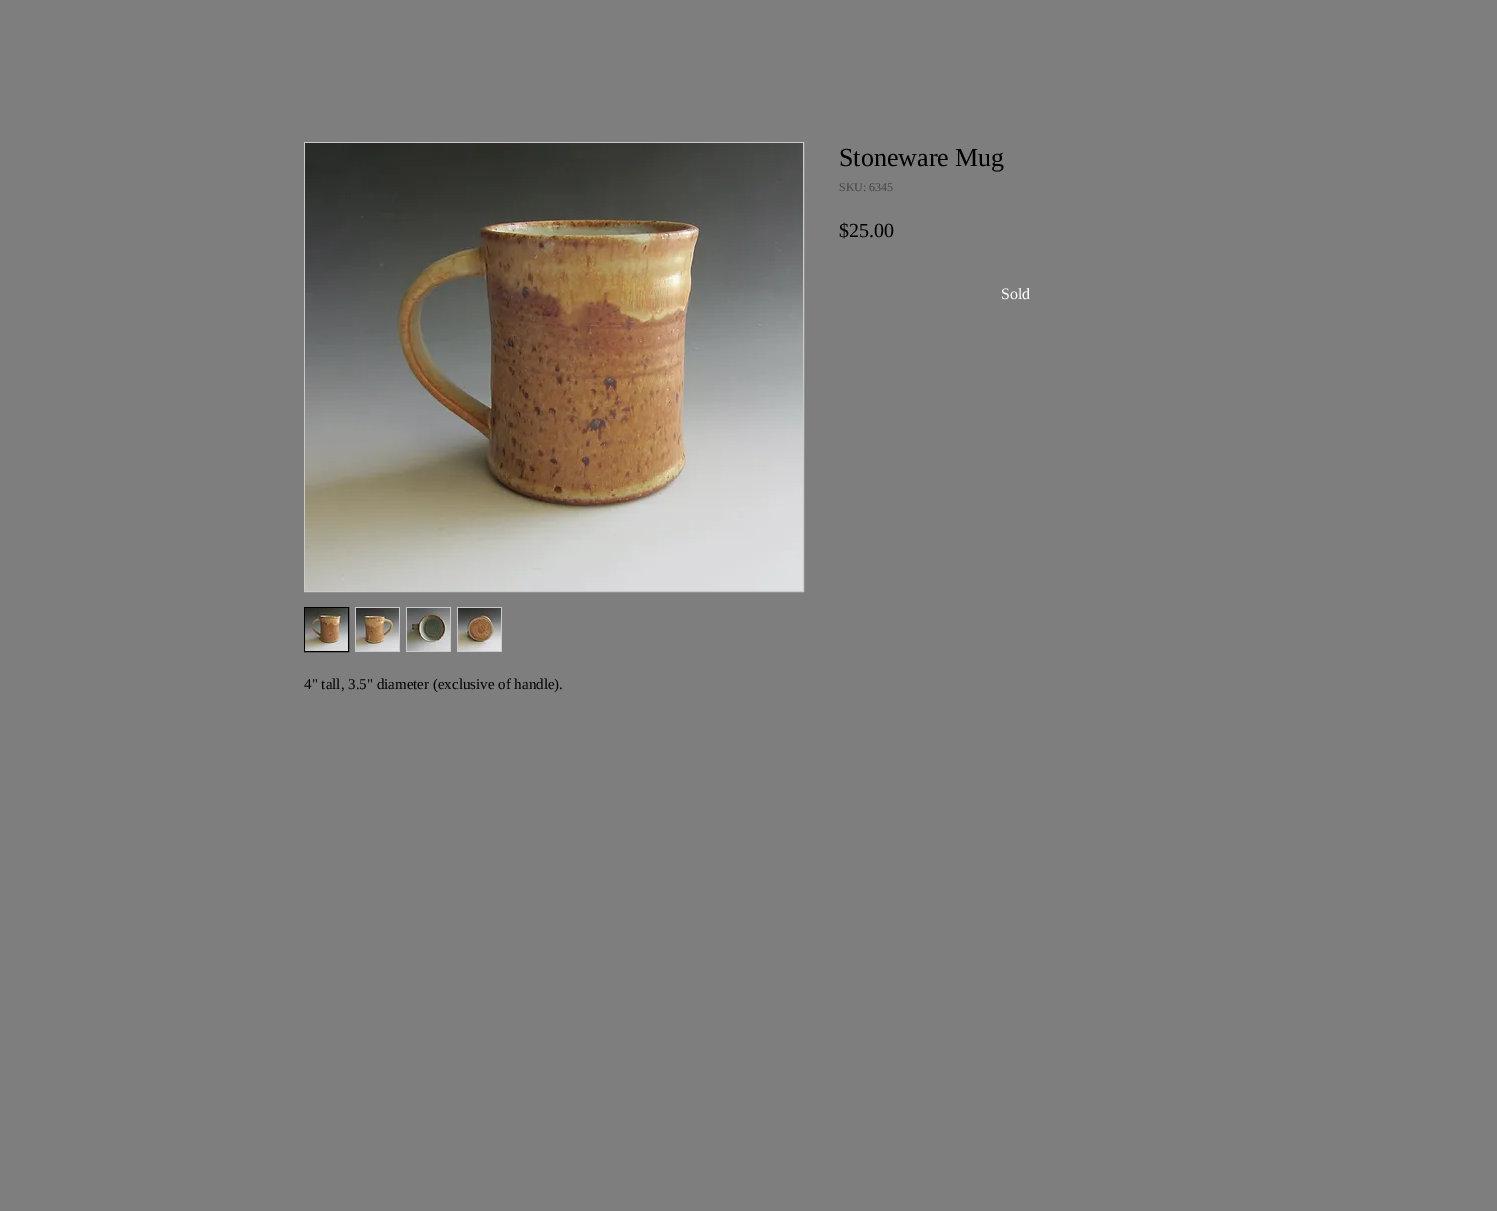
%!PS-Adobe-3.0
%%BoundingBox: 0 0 1497 1211
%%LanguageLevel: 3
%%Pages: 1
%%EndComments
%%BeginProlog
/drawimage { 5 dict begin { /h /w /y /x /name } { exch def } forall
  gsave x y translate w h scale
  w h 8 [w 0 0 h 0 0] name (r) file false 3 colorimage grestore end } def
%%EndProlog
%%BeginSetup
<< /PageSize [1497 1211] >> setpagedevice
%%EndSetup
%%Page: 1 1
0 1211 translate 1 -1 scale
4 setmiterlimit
0.498 0.494 0.494 setrgbcolor
0 0 1497 1211 rectfill
0.792 setgray
304.5 142.5 499 449 rectstroke
(images/1.raw) 305 143 498 448 drawimage
0 setgray
304.5 607.5 44 44 rectstroke
(images/2.raw) 305 608 43 43 drawimage
0.792 setgray
355 607 45 45 rectfill
(images/3.raw) 356 608 43 43 drawimage
406 607 45 45 rectfill
(images/4.raw) 407 608 43 43 drawimage
457 607 45 45 rectfill
(images/5.raw) 458 608 43 43 drawimage
/LiberationSerif-Regular [26 0 0 -26 0 0] selectfont
0 setgray
839 166 moveto (Stoneware Mug) show
/LiberationSerif-Regular [12 0 0 -12 0 0] selectfont
0.275 setgray
839 191 moveto (SKU: 6345) show
/LiberationSerif-Regular [20 0 0 -20 0 0] selectfont
0 setgray
839 237 moveto ($25.00) show
/LiberationSerif-Regular [16 0 0 -16 0 0] selectfont
1 setgray
1001 299 moveto (Sold) show
/LiberationSerif-Regular [15 0 0 -15 0 0] selectfont
0 setgray
304 689 moveto (4" tall, 3.5" diameter \(exclusive of handle\).) show
showpage
%%EOF
